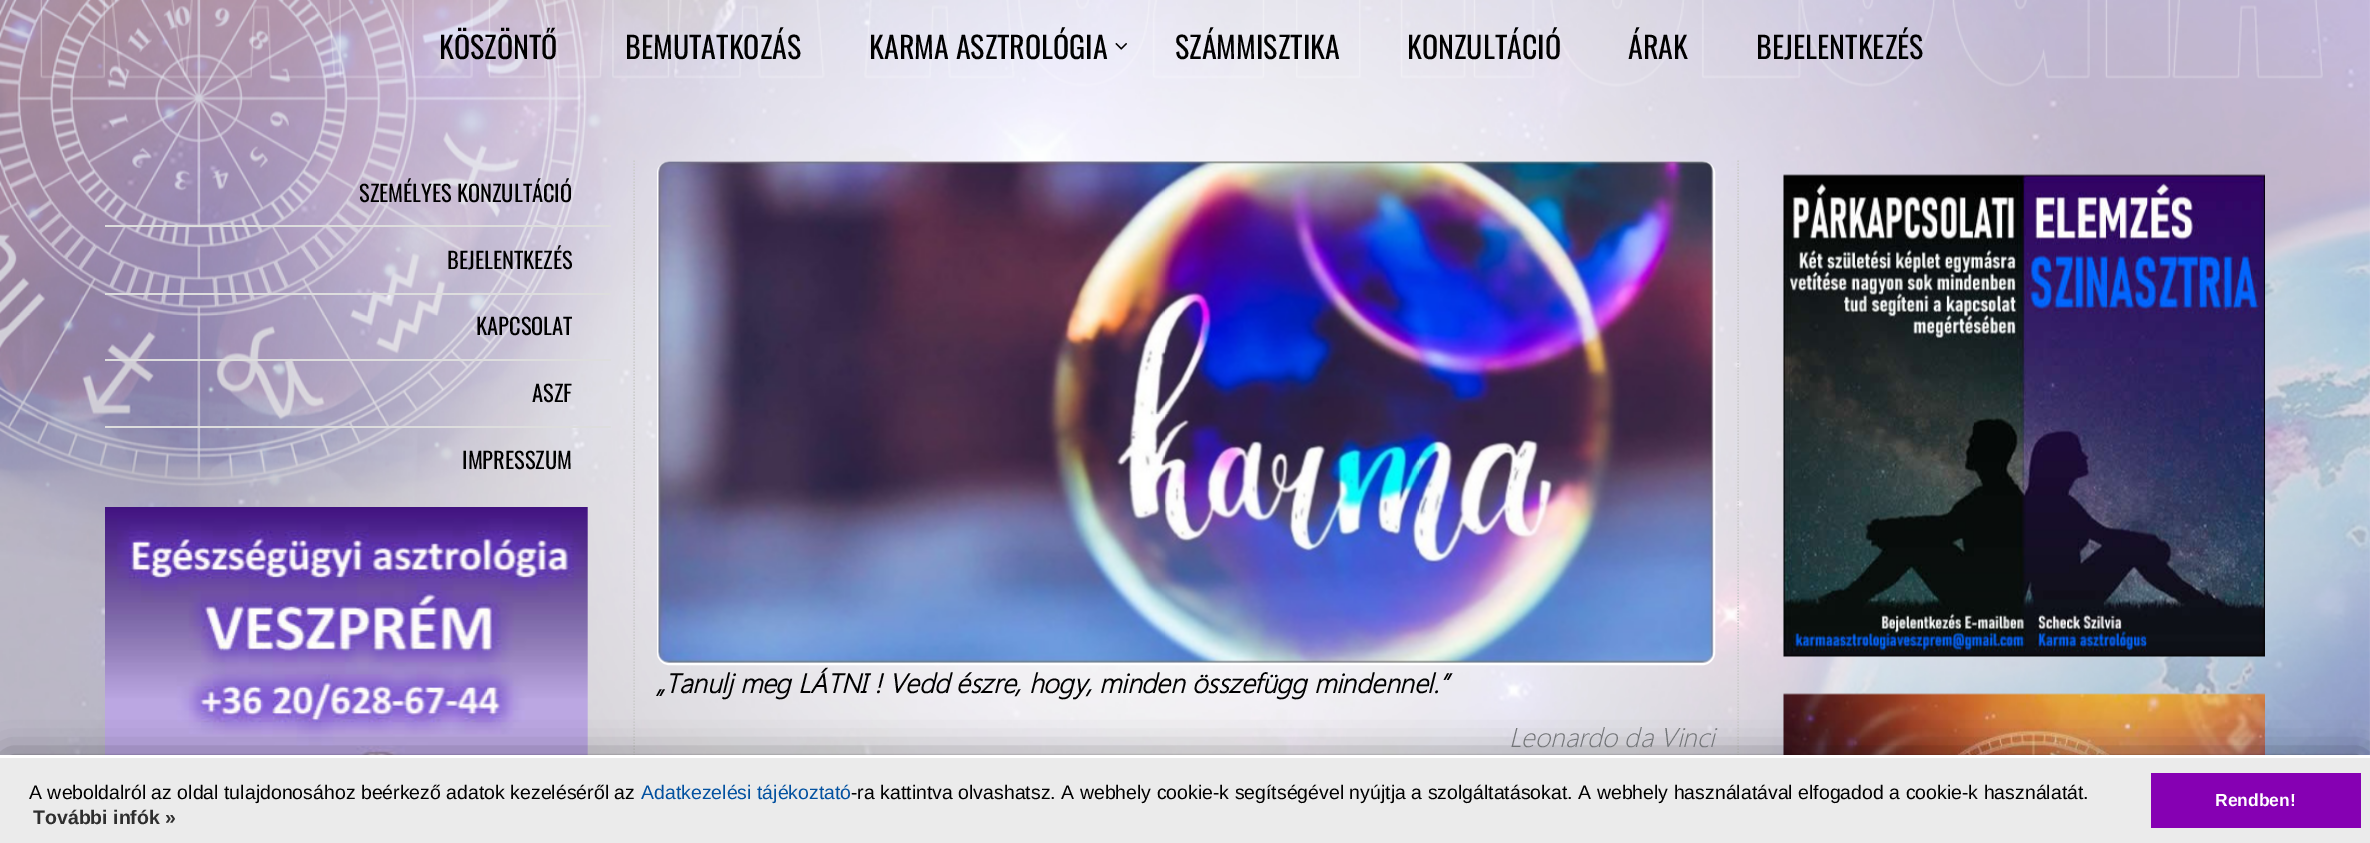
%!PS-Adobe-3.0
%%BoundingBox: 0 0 2370 843
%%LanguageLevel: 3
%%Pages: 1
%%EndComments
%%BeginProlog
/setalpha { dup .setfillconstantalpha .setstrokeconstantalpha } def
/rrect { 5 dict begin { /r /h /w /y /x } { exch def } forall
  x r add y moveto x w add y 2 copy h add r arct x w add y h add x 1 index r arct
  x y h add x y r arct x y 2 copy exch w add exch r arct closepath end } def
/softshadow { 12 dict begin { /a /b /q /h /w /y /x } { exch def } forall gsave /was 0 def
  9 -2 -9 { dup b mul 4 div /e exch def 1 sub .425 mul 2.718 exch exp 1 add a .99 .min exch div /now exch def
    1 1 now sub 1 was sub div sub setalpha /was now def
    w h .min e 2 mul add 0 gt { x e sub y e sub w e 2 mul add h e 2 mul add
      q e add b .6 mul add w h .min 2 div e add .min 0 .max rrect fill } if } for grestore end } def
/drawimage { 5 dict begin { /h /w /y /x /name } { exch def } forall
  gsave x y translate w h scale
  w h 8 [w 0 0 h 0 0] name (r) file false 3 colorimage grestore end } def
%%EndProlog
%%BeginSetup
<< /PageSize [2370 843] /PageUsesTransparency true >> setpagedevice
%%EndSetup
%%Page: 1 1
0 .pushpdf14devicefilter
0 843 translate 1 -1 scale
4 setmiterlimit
1 setgray
0 0 2370 843 rectfill
(images/1.raw) 0 0 2370 755 drawimage
(images/2.raw) 40 0 2283 87 drawimage
(images/3.raw) 1115 43 12 7 drawimage
0.8 setgray
1.5 setlinewidth
[1.5 1.5] 0 setdash
newpath 634 160.5 moveto 634 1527 lineto stroke
0.867 setgray
105 225 506 2 rectfill
105 293 506 2 rectfill
105 359 506 2 rectfill
105 426 506 2 rectfill
(images/4.raw) 105 507 483 248 drawimage
0.8 setgray
newpath 1738 160.5 moveto 1738 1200 lineto stroke
(images/5.raw) 1783 174 482 483 drawimage
(images/6.raw) 1783 693 482 62 drawimage
1 setgray
2 setlinewidth
[] 0 setdash
658 162 1056 502 11 rrect stroke
(images/7.raw) 658 161 1056 502 drawimage
0 setgray
6 758 2358 76 0 17 0.47 softshadow
0.922 setgray
0 758 2370 85 rectfill
1 setgray
0 755 2370 3 rectfill
0.525 0 0.702 setrgbcolor
2151 773 210 55 rectfill
/Oswald-Regular [30 0 0 -30 0 0] selectfont
0 setgray
439 59 moveto (KÖSZÖNTŐ) show
625 59 moveto (BEMUTATKOZÁS) show
869 59 moveto (KARMA ASZTROLÓGIA) show
1175 59 moveto (SZÁMMISZTIKA) show
1407 59 moveto (KONZULTÁCIÓ) show
1628 59 moveto (ÁRAK) show
1756 59 moveto (BEJELENTKEZÉS) show
/Oswald-Regular [22.5 0 0 -22.5 0 0] selectfont
359 202 moveto (SZEMÉLYES KONZULTÁCIÓ) show
447 269 moveto (BEJELENTKEZÉS) show
476 335 moveto (KAPCSOLAT) show
532 402 moveto (ASZF) show
462 469 moveto (IMPRESSZUM) show
/SegoeUI-BoldItalic [27 0 0 -27 0 0] selectfont
656 693 moveto („Tanulj meg LÁTNI ! Vedd észre, hogy, minden összefügg mindennel.”) show
/SegoeUI-LightItalic [27 0 0 -27 0 0] selectfont
0.447 0.455 0.467 setrgbcolor
1509 747 moveto (Leonardo da Vinci) show
/LiberationSans-Regular [19.5 0 0 -19.5 0 0] selectfont
0 setgray
29 799 moveto (A weboldalról az oldal tulajdonosához beérkező adatok kezeléséről az) show
0.008 0.318 0.627 setrgbcolor
641 799 moveto (Adatkezelési tájékoztató) show
0 setgray
851 799 moveto (-ra kattintva olvashatsz. A webhely cookie-k segítségével nyújtja a szolgáltatásokat. A webhely használatával elfogadod a cookie-k használatát.) show
/LiberationSans-Bold [19.5 0 0 -19.5 0 0] selectfont
0.184 setgray
33 824 moveto (További infók ») show
/LiberationSans-Bold [17.5 0 0 -17.5 0 0] selectfont
1 setgray
2215 806 moveto (Rendben!) show
.poppdf14devicefilter showpage
%%EOF
